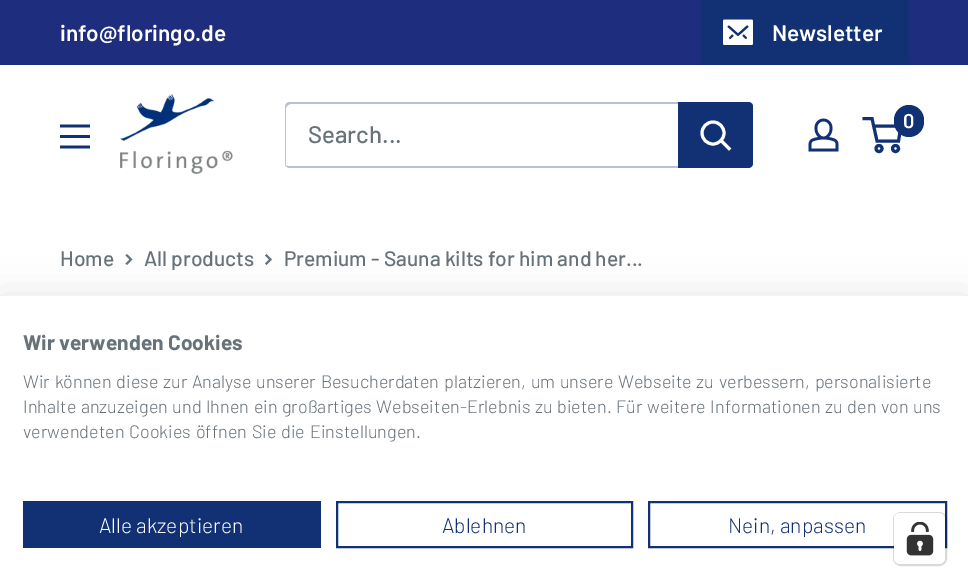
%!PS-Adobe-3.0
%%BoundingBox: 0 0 968 587
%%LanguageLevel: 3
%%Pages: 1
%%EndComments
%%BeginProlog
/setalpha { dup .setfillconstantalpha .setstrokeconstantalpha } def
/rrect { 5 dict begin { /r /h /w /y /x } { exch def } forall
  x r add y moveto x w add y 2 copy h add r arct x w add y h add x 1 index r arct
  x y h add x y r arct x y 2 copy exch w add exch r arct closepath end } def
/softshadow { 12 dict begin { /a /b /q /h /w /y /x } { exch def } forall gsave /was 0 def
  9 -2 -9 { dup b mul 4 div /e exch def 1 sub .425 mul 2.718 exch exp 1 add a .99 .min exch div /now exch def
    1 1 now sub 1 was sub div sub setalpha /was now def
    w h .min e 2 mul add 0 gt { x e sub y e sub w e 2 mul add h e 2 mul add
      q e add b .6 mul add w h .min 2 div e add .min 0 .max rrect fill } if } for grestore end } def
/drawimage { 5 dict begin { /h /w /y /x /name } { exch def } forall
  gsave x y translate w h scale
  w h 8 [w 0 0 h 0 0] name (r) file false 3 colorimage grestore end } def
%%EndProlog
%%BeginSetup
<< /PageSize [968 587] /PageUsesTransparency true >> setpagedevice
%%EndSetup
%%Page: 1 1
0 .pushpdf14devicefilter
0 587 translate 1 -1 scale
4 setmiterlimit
1 setgray
0 0 968 587 rectfill
0.118 0.176 0.49 setrgbcolor
0 0 968 63 rectfill
0.102 0.18 0.478 setrgbcolor
0 63 968 2 rectfill
0.067 0.192 0.455 setrgbcolor
701 0 208 65 rectfill
(images/1.raw) 723 19 30 26 drawimage
(images/2.raw) 120 94 113 80 drawimage
(images/3.raw) 808 118 31 34 drawimage
3 setlinewidth
newpath 879 148.5 3 0 360 arc closepath stroke
newpath 895.5 148.5 3 0 360 arc closepath stroke
newpath 873.5 126 moveto 901 126 lineto 898.5 141 lineto 877 141 lineto 872 118.5 lineto 862.5 118.5 lineto stroke
894 105 30 32 15 rrect fill
(images/4.raw) 60 124 30 25 drawimage
0.722 0.757 0.835 setrgbcolor
newpath 285 165 moveto 286 167 288 168 290 168 curveto 748 168 lineto 751 168 753 166 753 163 curveto 753 107 lineto 753 106 752 104 752 103 curveto 752 105 lineto 752 162 lineto 752 164 749 166 747 166 curveto 288 166 lineto 287 166 286 166 285 165 curveto closepath fill
newpath 291 104 moveto 750 104 lineto 753 105 lineto 752 103 750 102 748 102 curveto 290 102 lineto 287 102 285 104 285 107 curveto 285 163 lineto 285 164 286 166 286 167 curveto 286 165 lineto 286 108 lineto 286 106 289 104 291 104 curveto closepath fill
0.067 0.192 0.455 setrgbcolor
newpath 678 102 moveto 748 102 lineto 751 102 753 104 753 107 curveto 753 163 lineto 753 166 751 168 748 168 curveto 678 168 lineto closepath fill
1 setgray
2 setlinecap
newpath 729 148.5 moveto 721.5 141 lineto stroke
0 setlinecap
newpath 713 133 11 0 360 arc closepath stroke
0.404 0.447 0.475 setrgbcolor
2 setlinewidth
2 setlinecap
newpath 127 255.5 moveto 131 259.5 lineto 127 263.5 lineto stroke
newpath 266.5 255.5 moveto 270.5 259.5 lineto 266.5 263.5 lineto stroke
0 setgray
0 296 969 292 0 18 0.1 softshadow
1 setgray
0 296 968 291 rectfill
0.067 0.192 0.455 setrgbcolor
23 501 298 47 rectfill
0 setlinecap
337 502 295 45 rectstroke
649 502 297 45 rectstroke
0.15 setalpha
0 setgray
894 513 52 52 7 rrect stroke
1 setalpha
1 setgray
894 513 51 51 6 rrect fill
(images/5.raw) 906 522 28 34 drawimage
/Barlow-SemiBold [22.5 0 0 -22.5 0 0] selectfont
60 41 moveto (info@floringo.de) show
772 41 moveto (Newsletter) show
/Barlow-SemiBold [20 0 0 -20 0 0] selectfont
903 128 moveto (0) show
/Barlow-Medium [24 0 0 -24 0 0] selectfont
0.404 0.447 0.475 setrgbcolor
308 143 moveto (Search...) show
/Barlow-Medium [21 0 0 -21 0 0] selectfont
60 266 moveto (Home) show
144 266 moveto (All products) show
284 266 moveto (Premium - Sauna kilts for him and her...) show
/Barlow-Bold [21 0 0 -21 0 0] selectfont
23 350 moveto (Wir verwenden Cookies) show
/Barlow-Light [18 0 0 -18 0 0] selectfont
23 388 moveto 1.1 0 32 (Wir können diese zur Analyse unserer Besucherdaten platzieren, um unsere Webseite zu verbessern, personalisierte) widthshow
23 413 moveto 0.9 0 32 (Inhalte anzuzeigen und Ihnen ein großartiges Webseiten-Erlebnis zu bieten. Für weitere Informationen zu den von uns) widthshow
23 438 moveto 1.25 0 32 (verwendeten Cookies öffnen Sie die Einstellungen.) widthshow
/Barlow-Light [21 0 0 -21 0 0] selectfont
1 setgray
99 533 moveto (Alle akzeptieren) show
0.067 0.192 0.455 setrgbcolor
442 533 moveto (Ablehnen) show
728 533 moveto (Nein, anpassen) show
.poppdf14devicefilter showpage
%%EOF
